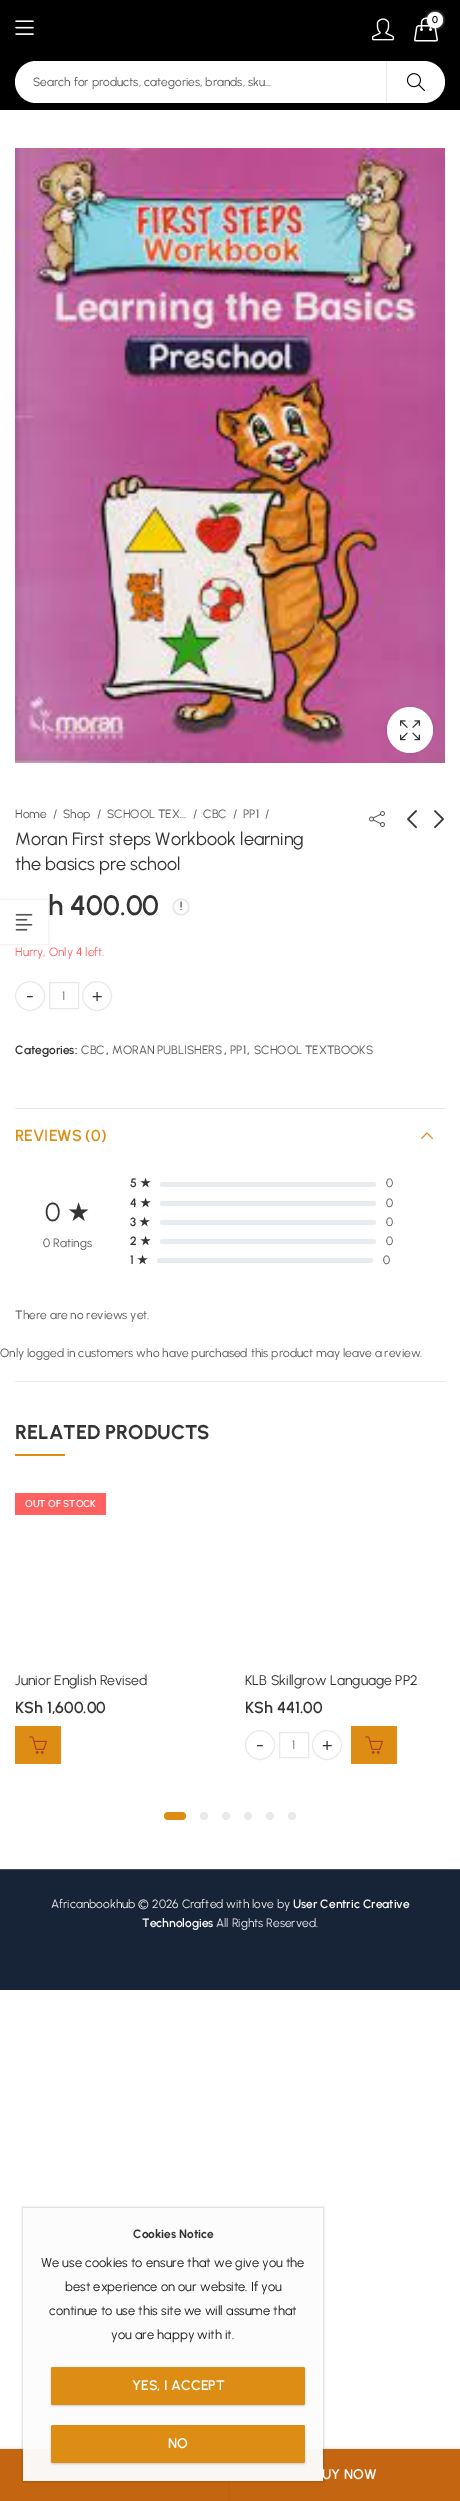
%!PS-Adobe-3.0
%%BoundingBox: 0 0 460 2501
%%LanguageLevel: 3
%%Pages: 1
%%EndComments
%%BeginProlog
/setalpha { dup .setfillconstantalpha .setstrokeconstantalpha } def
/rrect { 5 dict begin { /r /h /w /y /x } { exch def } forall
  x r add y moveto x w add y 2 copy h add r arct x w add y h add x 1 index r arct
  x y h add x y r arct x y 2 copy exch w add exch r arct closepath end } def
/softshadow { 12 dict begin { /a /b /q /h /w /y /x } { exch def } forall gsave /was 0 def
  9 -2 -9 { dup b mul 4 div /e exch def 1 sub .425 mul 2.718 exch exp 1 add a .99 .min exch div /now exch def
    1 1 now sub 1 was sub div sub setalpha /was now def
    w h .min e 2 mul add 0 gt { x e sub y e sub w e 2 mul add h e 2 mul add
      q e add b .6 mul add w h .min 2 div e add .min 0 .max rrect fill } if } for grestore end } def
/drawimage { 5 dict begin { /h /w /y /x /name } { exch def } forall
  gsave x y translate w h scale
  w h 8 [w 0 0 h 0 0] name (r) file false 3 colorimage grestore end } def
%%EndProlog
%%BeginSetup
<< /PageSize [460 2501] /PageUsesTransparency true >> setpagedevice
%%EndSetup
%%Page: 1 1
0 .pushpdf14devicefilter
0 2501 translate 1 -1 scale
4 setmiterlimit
1 setgray
0 0 460 2501 rectfill
0 setgray
0 0 460 110 rectfill
(images/1.raw) 15 20 19 15 drawimage
(images/2.raw) 372 18 22 23 drawimage
(images/3.raw) 414 17 24 25 drawimage
1 setgray
427 12 16 16 8 1.5 0.7 softshadow
newpath 435 20 8 0 360 arc closepath fill
newpath 36 61 moveto 387 61 lineto 387 103 lineto 36 103 lineto 24.5 103 15 93.5 15 82 curveto 15 70.5 24.5 61 36 61 curveto closepath fill
0.914 setgray
386 61 1 42 rectfill
1 setgray
newpath 387 61 moveto 424 61 lineto 435.5 61 445 70.5 445 82 curveto 445 93.5 435.5 103 424 103 curveto 387 103 lineto closepath fill
(images/4.raw) 406 73 19 19 drawimage
(images/5.raw) 15 148 430 615 drawimage
0 setgray
387 707 46 46 23 1.5 0.1 softshadow
1 setgray
newpath 410 730 23 0 360 arc closepath fill
(images/6.raw) 400 720 20 21 drawimage
(images/7.raw) 369 811 16 16 drawimage
(images/8.raw) 407 810 10 19 drawimage
(images/9.raw) 434 810 10 19 drawimage
gsave
newpath 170 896 moveto 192 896 lineto 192 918 lineto 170 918 lineto closepath 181 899 moveto 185.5 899 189 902.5 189 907 curveto 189 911.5 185.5 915 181 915 curveto 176.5 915 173 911.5 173 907 curveto 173 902.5 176.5 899 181 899 curveto closepath eoclip newpath
0 setgray
173 899 16 16 8 0.5 0.2 softshadow
grestore
0.914 setgray
newpath 181 907 7.5 0 360 arc closepath stroke
newpath 30 996 14.5 0 360 arc closepath stroke
49.5 982.5 29 26 rectstroke
newpath 97 996 14.5 0 360 arc closepath stroke
0 setgray
0 2449 230 52 0 2 0.15 softshadow
0.769 0.396 0.067 setrgbcolor
0 2449 230 52 rectfill
0 setgray
232 2449 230 52 0 2 0.15 softshadow
0.769 0.396 0.067 setrgbcolor
230 2449 230 52 rectfill
0.914 setgray
15 1108 430 1 rectfill
15 1381 430 1 rectfill
(images/10.raw) 421 1132 12 7 drawimage
0.914 0.925 0.937 setrgbcolor
160 1182 216 5 2.5 rrect fill
160 1201 216 5 2.5 rrect fill
160 1220 216 5 2.5 rrect fill
160 1239 216 5 2.5 rrect fill
157 1258 216 5 2.5 rrect fill
0.867 0.553 0.075 setrgbcolor
15 1454 50 2 rectfill
1 0.38 0.38 setrgbcolor
15 1493 91 22 rectfill
0.867 0.553 0.075 setrgbcolor
15 1726 46 38 rectfill
(images/11.raw) 29 1736 18 18 drawimage
0.914 setgray
newpath 260 1745 14.5 0 360 arc closepath stroke
279.5 1732.5 29 25 rectstroke
newpath 327 1745 14.5 0 360 arc closepath stroke
0.867 0.553 0.075 setrgbcolor
351 1726 46 38 rectfill
(images/11.raw) 365 1736 18 18 drawimage
164 1812 22 8 4 rrect fill
0.914 setgray
newpath 204 1816 4 0 360 arc closepath fill
newpath 226 1816 4 0 360 arc closepath fill
newpath 248 1816 4 0 360 arc closepath fill
newpath 270 1816 4 0 360 arc closepath fill
newpath 292 1816 4 0 360 arc closepath fill
0.09 0.137 0.216 setrgbcolor
0 1870 460 120 rectfill
0.271 0.302 0.369 setrgbcolor
0 1869 460 1 rectfill
0 setgray
0 900 48 44 0 1.5 0.1 softshadow
1 setgray
0 900 48 44 rectfill
(images/12.raw) 15 913 18 18 drawimage
gsave
newpath 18 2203 moveto 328 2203 lineto 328 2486 lineto 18 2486 lineto closepath 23 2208 moveto 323 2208 lineto 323 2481 lineto 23 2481 lineto closepath eoclip newpath
0 setgray
22 2207 302 275 0 1 0.15 softshadow
grestore
/Urbanist-SemiBold [10 0 0 -10 0 0] selectfont
0 setgray
432 23 moveto (0) show
/Urbanist-Regular [12 0 0 -12 0 0] selectfont
0.333 setgray
33 86 moveto (Search for products, categories, brands, sku...) show
15 818 moveto (Home) show
53 818 moveto (/) show
63 818 moveto (Shop) show
97 818 moveto (/) show
107 818 moveto (SCHOOL TEX…) show
193 818 moveto (/) show
203 818 moveto (CBC) show
233 818 moveto (/) show
243 818 moveto (PP1) show
265 818 moveto (/) show
/Urbanist-Regular [18 0 0 -18 0 0] selectfont
0.2 setgray
15 845 moveto (Moran First steps Workbook learning) show
15 870 moveto (the basics pre school) show
/Urbanist-SemiBold [28 0 0 -28 0 0] selectfont
48 915 moveto (h 400.00) show
/Urbanist-SemiBold [12 0 0 -12 0 0] selectfont
0.333 setgray
180 910 moveto (!) show
/Urbanist-Regular [12 0 0 -12 0 0] selectfont
1 0.38 0.38 setrgbcolor
15 956 moveto (Hurry, Only 4 left.) show
/Urbanist-Regular [18 0 0 -18 0 0] selectfont
0.2 setgray
26 1002 moveto (-) show
/Urbanist-Regular [12 0 0 -12 0 0] selectfont
0.467 setgray
62 1000 moveto (1) show
/Urbanist-Regular [18 0 0 -18 0 0] selectfont
0.2 setgray
92 1002 moveto (+) show
/Urbanist-SemiBold [14 0 0 -14 0 0] selectfont
1 setgray
322 2479 moveto (UY NOW) show
/Urbanist-SemiBold [12 0 0 -12 0 0] selectfont
0.2 setgray
15 1054 moveto (Categories:) show
/Urbanist-Regular [12 0 0 -12 0 0] selectfont
0.333 setgray
81 1054 moveto (CBC) show
/Urbanist-SemiBold [12 0 0 -12 0 0] selectfont
0.2 setgray
106 1054 moveto (,) show
/Urbanist-Regular [12 0 0 -12 0 0] selectfont
0.333 setgray
112 1054 moveto (MORAN PUBLISHERS) show
/Urbanist-SemiBold [12 0 0 -12 0 0] selectfont
0.2 setgray
224 1054 moveto (,) show
/Urbanist-Regular [12 0 0 -12 0 0] selectfont
0.333 setgray
230 1054 moveto (PP1) show
/Urbanist-SemiBold [12 0 0 -12 0 0] selectfont
0.2 setgray
247 1054 moveto (,) show
/Urbanist-Regular [12 0 0 -12 0 0] selectfont
0.333 setgray
254 1054 moveto (SCHOOL TEXTBOOKS) show
/Urbanist-SemiBold [16 0 0 -16 0 0] selectfont
0.867 0.553 0.075 setrgbcolor
15 1141 moveto (REVIEWS \(0\)) show
/Urbanist-Regular [26 0 0 -26 0 0] selectfont
0.2 setgray
45 1221 moveto (0) show
/DejaVuSans-Regular [26 0 0 -26 0 0] selectfont
67 1221 moveto (★) show
/Urbanist-Regular [12 0 0 -12 0 0] selectfont
0.333 setgray
43 1247 moveto (0 Ratings) show
/Urbanist-SemiBold [12 0 0 -12 0 0] selectfont
0.2 setgray
130 1187 moveto (5) show
/DejaVuSans-Bold [12 0 0 -12 0 0] selectfont
140 1187 moveto (★) show
/Urbanist-Regular [12 0 0 -12 0 0] selectfont
0.333 setgray
386 1187 moveto (0) show
/Urbanist-SemiBold [12 0 0 -12 0 0] selectfont
0.2 setgray
130 1207 moveto (4) show
/DejaVuSans-Bold [12 0 0 -12 0 0] selectfont
140 1207 moveto (★) show
/Urbanist-Regular [12 0 0 -12 0 0] selectfont
0.333 setgray
386 1207 moveto (0) show
/Urbanist-SemiBold [12 0 0 -12 0 0] selectfont
0.2 setgray
130 1226 moveto (3) show
/DejaVuSans-Bold [12 0 0 -12 0 0] selectfont
139 1226 moveto (★) show
/Urbanist-Regular [12 0 0 -12 0 0] selectfont
0.333 setgray
386 1226 moveto (0) show
/Urbanist-SemiBold [12 0 0 -12 0 0] selectfont
0.2 setgray
130 1245 moveto (2) show
/DejaVuSans-Bold [12 0 0 -12 0 0] selectfont
140 1245 moveto (★) show
/Urbanist-Regular [12 0 0 -12 0 0] selectfont
0.333 setgray
386 1245 moveto (0) show
/Urbanist-SemiBold [12 0 0 -12 0 0] selectfont
0.2 setgray
130 1264 moveto (1) show
/DejaVuSans-Bold [12 0 0 -12 0 0] selectfont
137 1264 moveto (★) show
/Urbanist-Regular [12 0 0 -12 0 0] selectfont
0.333 setgray
383 1264 moveto (0) show
15 1319 moveto (There are no reviews yet.) show
0 1357 moveto (Only logged in customers who have purchased this product may leave a review.) show
/Urbanist-Bold [20 0 0 -20 0 0] selectfont
0.2 setgray
15 1439 moveto (RELATED PRODUCTS) show
/Urbanist-SemiBold [10 0 0 -10 0 0] selectfont
1 setgray
25 1507 moveto (OUT OF STOCK) show
/Urbanist-Regular [14 0 0 -14 0 0] selectfont
0.2 setgray
15 1685 moveto (Junior English Revised) show
/Urbanist-SemiBold [16 0 0 -16 0 0] selectfont
15 1713 moveto (KSh 1,600.00) show
/Urbanist-Regular [14 0 0 -14 0 0] selectfont
245 1685 moveto (KLB Skillgrow Language PP2) show
/Urbanist-SemiBold [16 0 0 -16 0 0] selectfont
245 1713 moveto (KSh 441.00) show
/Urbanist-Regular [18 0 0 -18 0 0] selectfont
256 1751 moveto (-) show
/Urbanist-Regular [12 0 0 -12 0 0] selectfont
0.467 setgray
292 1749 moveto (1) show
/Urbanist-Regular [18 0 0 -18 0 0] selectfont
0.2 setgray
322 1751 moveto (+) show
/Urbanist-Regular [12 0 0 -12 0 0] selectfont
0.945 setgray
51 1908 moveto (Africanbookhub © 2026 Crafted with love by) show
/Urbanist-SemiBold [12 0 0 -12 0 0] selectfont
1 setgray
293 1908 moveto (User Centric Creative) show
142 1927 moveto (Technologies) show
/Urbanist-Regular [12 0 0 -12 0 0] selectfont
0.945 setgray
216 1927 moveto (All Rights Reserved.) show
0.96 setalpha
0.988 setgray
23 2208 300 273 rectfill
/Urbanist-Bold [12 0 0 -12 0 0] selectfont
1 setalpha
0.2 setgray
133 2238 moveto (Cookies Notice) show
/Urbanist-Regular [13 0 0 -13 0 0] selectfont
0.129 setgray
41 2267 moveto (We use cookies to ensure that we give you the) show
65 2291 moveto (best experience on our website. If you) show
49 2315 moveto (continue to use this site we will assume that) show
111 2339 moveto (you are happy with it.) show
0 setgray
51 2368 254 38 2 1 0.2 softshadow
0.867 0.553 0.075 setrgbcolor
51 2367 254 38 2 rrect fill
/Urbanist-SemiBold [14 0 0 -14 0 0] selectfont
1 setgray
132 2390 moveto (YES, I ACCEPT) show
0 setgray
51 2426 254 38 2 1 0.2 softshadow
0.867 0.553 0.075 setrgbcolor
51 2425 254 38 2 rrect fill
1 setgray
168 2448 moveto (NO) show
.poppdf14devicefilter showpage
%%EOF
